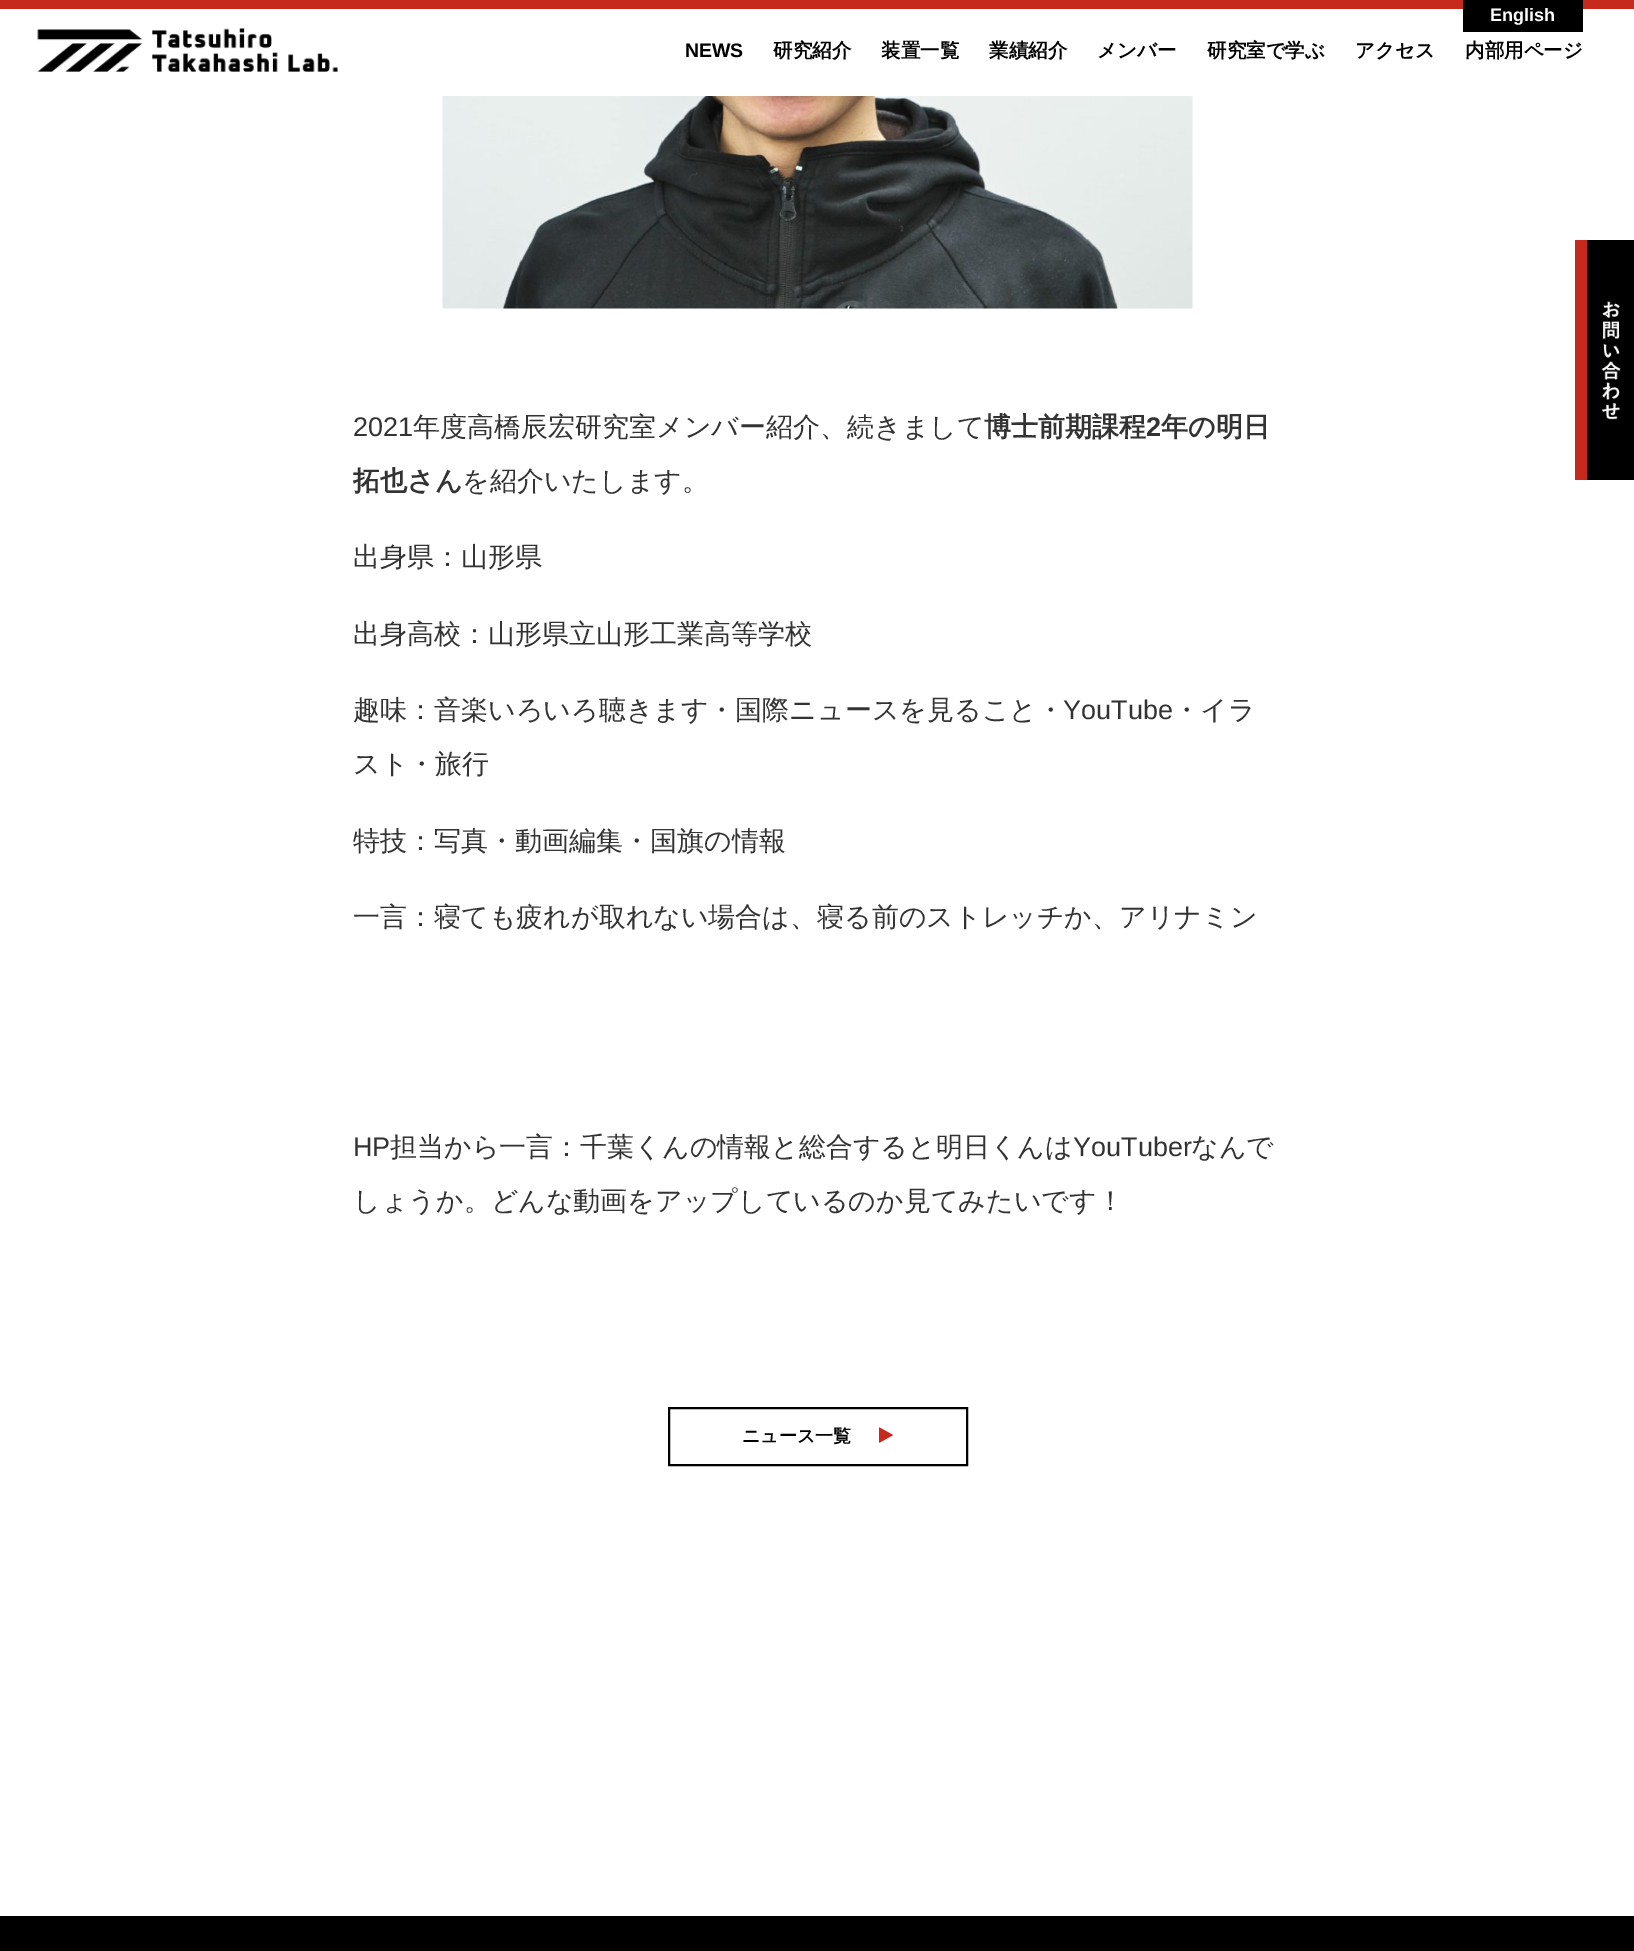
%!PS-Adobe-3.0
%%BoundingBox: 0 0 1634 1951
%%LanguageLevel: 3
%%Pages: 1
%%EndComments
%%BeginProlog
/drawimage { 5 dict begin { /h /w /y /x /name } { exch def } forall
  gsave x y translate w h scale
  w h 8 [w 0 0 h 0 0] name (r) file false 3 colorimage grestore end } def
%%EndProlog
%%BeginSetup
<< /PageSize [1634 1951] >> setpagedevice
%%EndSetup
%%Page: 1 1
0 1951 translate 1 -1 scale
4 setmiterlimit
1 setgray
0 0 1634 1951 rectfill
0.776 0.165 0.11 setrgbcolor
0 0 1634 9 rectfill
0 setgray
1463 0 120 32 rectfill
(images/1.raw) 37 28 301 44 drawimage
(images/2.raw) 1575 240 59 240 drawimage
(images/3.raw) 442 96 751 213 drawimage
2 setlinewidth
669 1408 298 57 rectstroke
(images/4.raw) 879 1427 14 16 drawimage
0 1916 1634 35 rectfill
/LiberationSans-Bold [18 0 0 -18 0 0] selectfont
1 setgray
1490 21 moveto (English) show
/LiberationSans-Bold [19.5 0 0 -19.5 0 0] selectfont
0 setgray
685 57 moveto (NEWS) show
/WenQuanYiZenHei-Bold [19.5 0 0 -19.5 0 0] selectfont
773 57 moveto (研究紹介) show
881 57 moveto (装置一覧) show
989 57 moveto (業績紹介) show
1097 57 moveto (メンバー) show
1207 57 moveto (研究室で学ぶ) show
1355 57 moveto (アクセス) show
1465 57 moveto (内部用ページ) show
/LiberationSans-Regular [27 0 0 -27 0 0] selectfont
0.2 setgray
353 436 moveto (2021) show
/WenQuanYiZenHei-Medium [27 0 0 -27 0 0] selectfont
413 436 moveto (年度高橋辰宏研究室メンバー紹介、続きまして) show
/WenQuanYiZenHei-Bold [27 0 0 -27 0 0] selectfont
984 436 moveto (博士前期課程) show
/LiberationSans-Bold [27 0 0 -27 0 0] selectfont
1146 436 moveto (2) show
/WenQuanYiZenHei-Bold [27 0 0 -27 0 0] selectfont
1161 436 moveto (年の明日) show
353 490 moveto (拓也さん) show
/WenQuanYiZenHei-Medium [27 0 0 -27 0 0] selectfont
462 490 moveto (を紹介いたします。) show
353 566 moveto (出身県：山形県) show
353 643 moveto (出身高校：山形県立山形工業高等学校) show
353 719 moveto (趣味：音楽いろいろ聴きます・国際ニュースを見ること・) show
/LiberationSans-Regular [27 0 0 -27 0 0] selectfont
1063 719 moveto (YouTube) show
/WenQuanYiZenHei-Medium [27 0 0 -27 0 0] selectfont
1173 719 moveto (・イラ) show
353 773 moveto (スト・旅行) show
353 850 moveto (特技：写真・動画編集・国旗の情報) show
353 926 moveto (一言：寝ても疲れが取れない場合は、寝る前のストレッチか、アリナミン) show
/LiberationSans-Regular [27 0 0 -27 0 0] selectfont
353 1156 moveto (HP) show
/WenQuanYiZenHei-Medium [27 0 0 -27 0 0] selectfont
390 1156 moveto (担当から一言：千葉くんの情報と総合すると明日くんは) show
/LiberationSans-Regular [27 0 0 -27 0 0] selectfont
1073 1156 moveto (YouTuber) show
/WenQuanYiZenHei-Medium [27 0 0 -27 0 0] selectfont
1191 1156 moveto (なんで) show
353 1210 moveto (しょうか。どんな動画をアップしているのか見てみたいです！) show
/WenQuanYiZenHei-Bold [18 0 0 -18 0 0] selectfont
0 setgray
742 1442 moveto (ニュース一覧) show
showpage
%%EOF
